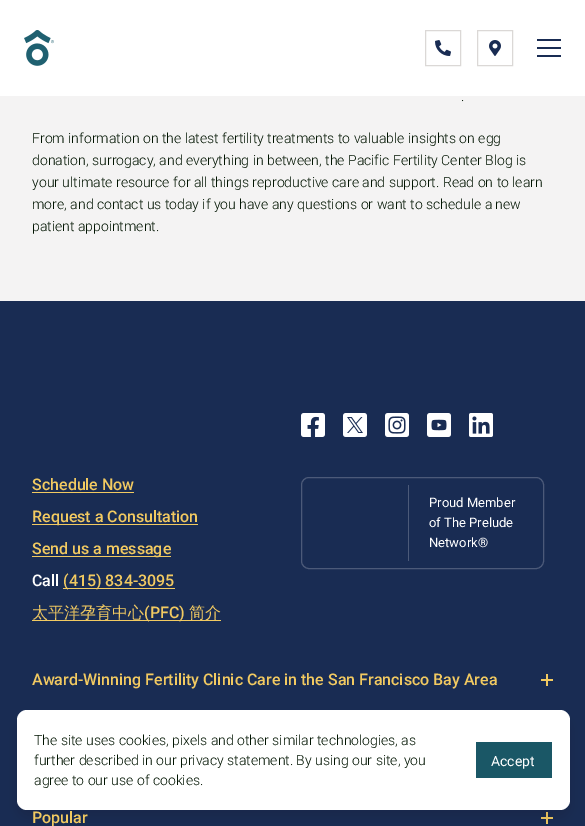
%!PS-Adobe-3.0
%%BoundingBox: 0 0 585 826
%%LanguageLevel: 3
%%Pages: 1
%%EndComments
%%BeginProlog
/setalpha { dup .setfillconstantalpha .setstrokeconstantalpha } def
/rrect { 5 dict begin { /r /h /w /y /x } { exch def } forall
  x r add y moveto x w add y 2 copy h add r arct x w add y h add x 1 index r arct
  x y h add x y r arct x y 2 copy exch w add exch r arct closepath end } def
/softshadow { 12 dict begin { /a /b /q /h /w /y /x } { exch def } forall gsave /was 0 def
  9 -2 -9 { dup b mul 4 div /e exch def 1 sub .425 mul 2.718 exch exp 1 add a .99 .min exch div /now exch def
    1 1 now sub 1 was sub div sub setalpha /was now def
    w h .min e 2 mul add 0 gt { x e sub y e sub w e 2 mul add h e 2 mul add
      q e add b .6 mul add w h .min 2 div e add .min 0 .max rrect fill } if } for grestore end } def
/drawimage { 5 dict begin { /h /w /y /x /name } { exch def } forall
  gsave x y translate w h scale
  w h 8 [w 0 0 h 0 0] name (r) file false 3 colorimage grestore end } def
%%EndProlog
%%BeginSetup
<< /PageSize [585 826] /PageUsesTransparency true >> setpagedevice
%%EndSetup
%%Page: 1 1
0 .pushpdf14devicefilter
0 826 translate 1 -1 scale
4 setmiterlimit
0.098 0.173 0.325 setrgbcolor
0 0 585 826 rectfill
1 setgray
0 0 585 96 rectfill
(images/1.raw) 24 30 30 36 drawimage
0.859 0.847 0.839 setrgbcolor
425.5 30.5 35 35 rectstroke
(images/2.raw) 435 40 16 16 drawimage
477.5 30.5 35 35 rectstroke
(images/3.raw) 489 40 12 16 drawimage
0.098 0.173 0.325 setrgbcolor
537 55 24 2 rectfill
537 39 24 2 rectfill
537 47 24 2 rectfill
0.957 0.953 0.953 setrgbcolor
0 96 585 205 rectfill
(images/4.raw) 301 413 24 24 drawimage
(images/5.raw) 343 413 24 24 drawimage
(images/6.raw) 385 413 24 24 drawimage
(images/7.raw) 427 413 24 24 drawimage
(images/8.raw) 469 413 24 24 drawimage
0.949 0.792 0.38 setrgbcolor
32 492 102 1 rectfill
32 524 166 1 rectfill
32 556 139 1 rectfill
63 588 112 1 rectfill
32 620 189 1 rectfill
0.298 0.353 0.475 setrgbcolor
301.5 477.5 242 91 7.5 rrect stroke
408 485 1 76 rectfill
0.949 0.792 0.38 setrgbcolor
541 679 12 2 rectfill
546 674 2 12 rectfill
541 817 12 2 rectfill
546 812 2 12 rectfill
0 setgray
17 718 553 100 10 6.5 0.1 softshadow
1 setgray
17 710 553 100 10 rrect fill
0.102 0.341 0.4 setrgbcolor
476 742 76 36 rectfill
/Roboto-Light [14 0 0 -14 0 0] selectfont
0 0.075 0 setrgbcolor
461 101 moveto (.) show
32 143 moveto (From information on the latest fertility treatments to valuable insights on egg) show
32 165 moveto (donation, surrogacy, and everything in between, the Pacific Fertility Center Blog is) show
32 187 moveto (your ultimate resource for all things reproductive care and support. Read on to learn) show
32 209 moveto (more, and contact us today if you have any questions or want to schedule a new) show
32 231 moveto (patient appointment.) show
/Roboto-Medium [16 0 0 -16 0 0] selectfont
0.949 0.792 0.38 setrgbcolor
32 490 moveto (Schedule Now) show
32 522 moveto (Request a Consultation) show
32 554 moveto (Send us a message) show
1 setgray
32 586 moveto (Call) show
0.949 0.792 0.38 setrgbcolor
63 586 moveto (\(415\) 834-3095) show
/WenQuanYiZenHei-Medium [16 0 0 -16 0 0] selectfont
32 618 moveto (太平洋孕育中心) show
/Roboto-Medium [16 0 0 -16 0 0] selectfont
144 618 moveto (\(PFC\)) show
/WenQuanYiZenHei-Medium [16 0 0 -16 0 0] selectfont
189 618 moveto (简介) show
/Roboto-Regular [13 0 0 -13 0 0] selectfont
1 setgray
429 507 moveto (Proud Member) show
429 527 moveto (of The Prelude) show
429 547 moveto (Network®) show
/Roboto-Medium [16 0 0 -16 0 0] selectfont
0.949 0.792 0.38 setrgbcolor
32 685 moveto (Award-Winning Fertility Clinic Care in the San Francisco Bay Area) show
32 823 moveto (Popular) show
/Roboto-Light [14 0 0 -14 0 0] selectfont
0 0.075 0 setrgbcolor
34 745 moveto (The site uses cookies, pixels and other similar technologies, as) show
34 765 moveto (further described in our privacy statement. By using our site, you) show
34 785 moveto (agree to our use of cookies.) show
/Roboto-Regular [14 0 0 -14 0 0] selectfont
1 setgray
491 766 moveto (Accept) show
.poppdf14devicefilter showpage
%%EOF
